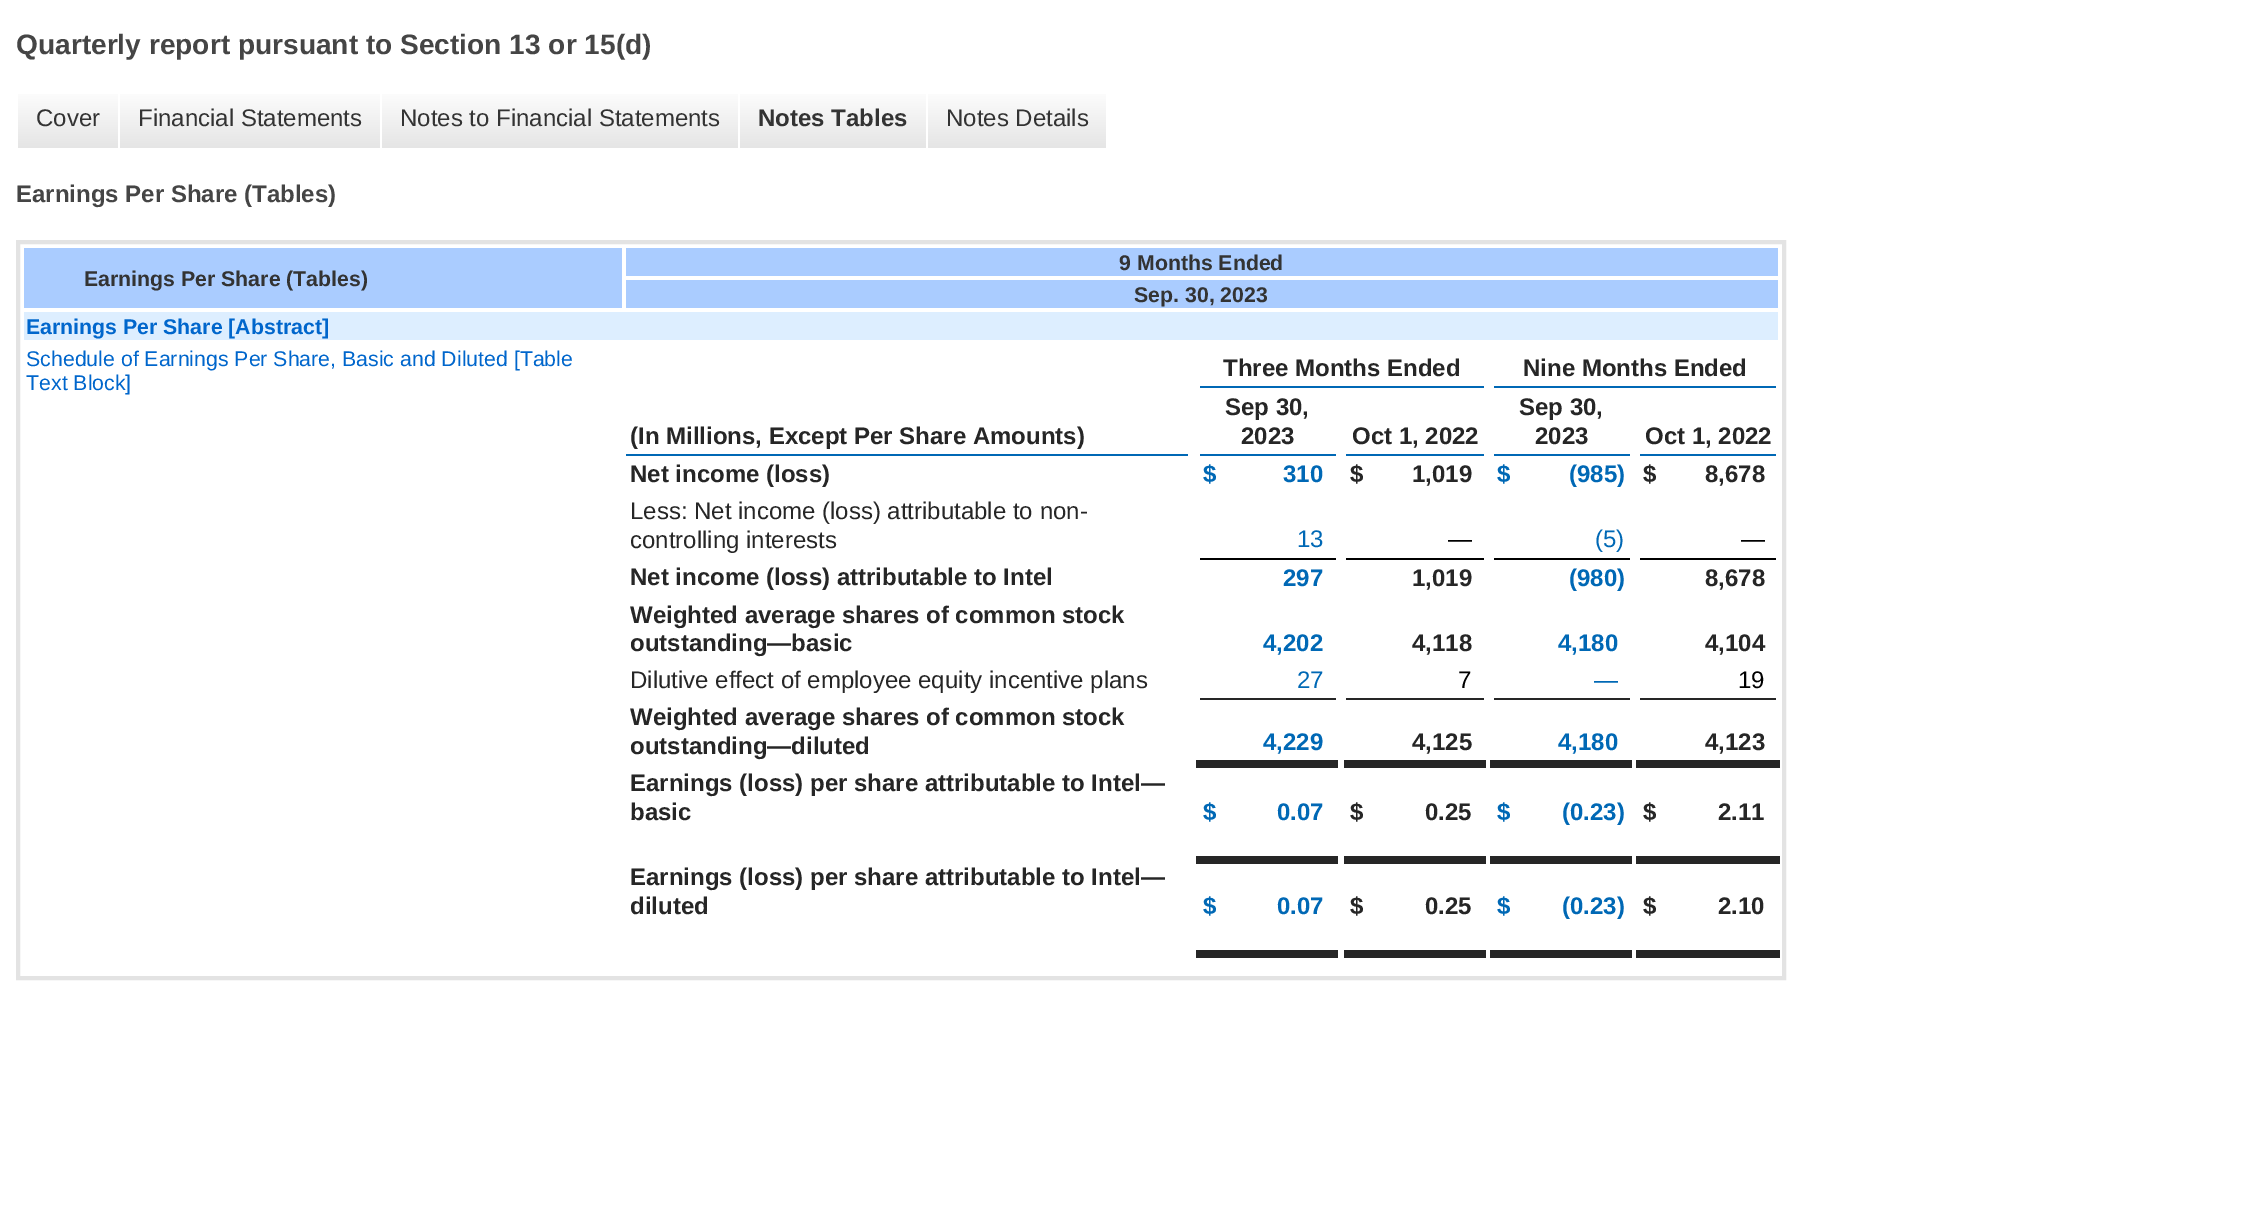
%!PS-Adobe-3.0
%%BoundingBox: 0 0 2244 1222
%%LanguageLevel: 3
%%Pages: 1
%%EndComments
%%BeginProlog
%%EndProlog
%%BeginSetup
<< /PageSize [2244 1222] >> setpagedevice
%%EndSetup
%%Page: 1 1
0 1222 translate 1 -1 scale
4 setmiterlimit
1 setgray
0 0 2244 1222 rectfill
gsave newpath 18 94 moveto 118 94 lineto 118 148 lineto 18 148 lineto closepath clip newpath
<< /ShadingType 2 /ColorSpace /DeviceRGB /Coords [68 88 68 148] /Extend [true true] /Function << /FunctionType 2 /Domain [0 1] /C0 [1 1 1] /C1 [0.898 0.898 0.898] /N 1 >> >> shfill grestore
gsave newpath 120 94 moveto 380 94 lineto 380 148 lineto 120 148 lineto closepath clip newpath
<< /ShadingType 2 /ColorSpace /DeviceRGB /Coords [250 88 250 148] /Extend [true true] /Function << /FunctionType 2 /Domain [0 1] /C0 [1 1 1] /C1 [0.898 0.898 0.898] /N 1 >> >> shfill grestore
gsave newpath 382 94 moveto 738 94 lineto 738 148 lineto 382 148 lineto closepath clip newpath
<< /ShadingType 2 /ColorSpace /DeviceRGB /Coords [560 88 560 148] /Extend [true true] /Function << /FunctionType 2 /Domain [0 1] /C0 [1 1 1] /C1 [0.898 0.898 0.898] /N 1 >> >> shfill grestore
gsave newpath 740 94 moveto 926 94 lineto 926 148 lineto 740 148 lineto closepath clip newpath
<< /ShadingType 2 /ColorSpace /DeviceRGB /Coords [833 88 833 148] /Extend [true true] /Function << /FunctionType 2 /Domain [0 1] /C0 [1 1 1] /C1 [0.898 0.898 0.898] /N 1 >> >> shfill grestore
gsave newpath 928 94 moveto 1106 94 lineto 1106 148 lineto 928 148 lineto closepath clip newpath
<< /ShadingType 2 /ColorSpace /DeviceRGB /Coords [1017 88 1017 148] /Extend [true true] /Function << /FunctionType 2 /Domain [0 1] /C0 [1 1 1] /C1 [0.898 0.898 0.898] /N 1 >> >> shfill grestore
0.89 setgray
4 setlinewidth
18 242 1766 736 rectstroke
0.667 0.8 1 setrgbcolor
626 248 1152 28 rectfill
24 248 598 60 rectfill
626 280 1152 28 rectfill
0.867 0.933 1 setrgbcolor
24 312 1754 28 rectfill
0 0.408 0.71 setrgbcolor
1200 386 284 2 rectfill
1494 386 282 2 rectfill
1200 454 136 2 rectfill
1346 454 138 2 rectfill
1494 454 136 2 rectfill
1640 454 136 2 rectfill
626 454 562 2 rectfill
0 setgray
1200 558 136 2 rectfill
1346 558 138 2 rectfill
1494 558 136 2 rectfill
1640 558 136 2 rectfill
0.149 setgray
1200 698 136 2 rectfill
1346 698 138 2 rectfill
1494 698 136 2 rectfill
1640 698 136 2 rectfill
1196 760 142 8 rectfill
1344 760 142 8 rectfill
1490 760 142 8 rectfill
1636 760 144 8 rectfill
1196 856 142 8 rectfill
1196 950 142 8 rectfill
1344 856 142 8 rectfill
1344 950 142 8 rectfill
1490 856 142 8 rectfill
1490 950 142 8 rectfill
1636 856 144 8 rectfill
1636 950 144 8 rectfill
/LiberationSans-Bold [28.1 0 0 -28.1 0 0] selectfont
0.271 setgray
16 54 moveto (Quarterly report pursuant to Section 13 or 15\(d\)) show
/LiberationSans-Regular [24 0 0 -24 0 0] selectfont
0.2 setgray
36 126 moveto (Cover) show
138 126 moveto (Financial Statements) show
400 126 moveto (Notes to Financial Statements) show
/LiberationSans-Bold [24 0 0 -24 0 0] selectfont
758 126 moveto (Notes Tables) show
/LiberationSans-Regular [24 0 0 -24 0 0] selectfont
946 126 moveto (Notes Details) show
/LiberationSans-Bold [24 0 0 -24 0 0] selectfont
0.271 setgray
16 202 moveto (Earnings Per Share \(Tables\)) show
/LiberationSans-Bold [21.3 0 0 -21.3 0 0] selectfont
0.2 setgray
1119 270 moveto (9 Months Ended) show
84 286 moveto (Earnings Per Share \(Tables\)) show
1134 302 moveto (Sep. 30, 2023) show
0 0.4 0.8 setrgbcolor
26 334 moveto (Earnings Per Share [Abstract]) show
/LiberationSans-Regular [21.3 0 0 -21.3 0 0] selectfont
26 366 moveto (Schedule of Earnings Per Share, Basic and Diluted [Table) show
26 390 moveto (Text Block]) show
/LiberationSans-Bold [24 0 0 -24 0 0] selectfont
0.149 setgray
1223 376 moveto (Three Months Ended) show
1523 376 moveto (Nine Months Ended) show
630 444 moveto (\(In Millions, Except Per Share Amounts\)) show
1225 415 moveto (Sep 30,) show
1241 444 moveto (2023) show
1352 444 moveto (Oct 1, 2022) show
1519 415 moveto (Sep 30,) show
1535 444 moveto (2023) show
1645 444 moveto (Oct 1, 2022) show
630 482 moveto (Net income \(loss\)) show
0 0.408 0.71 setrgbcolor
1203 482 moveto ($) show
1283 482 moveto (310) show
0.149 setgray
1350 482 moveto ($) show
1412 482 moveto (1,019) show
0 0.408 0.71 setrgbcolor
1497 482 moveto ($) show
1569 482 moveto (\(985\)) show
0.149 setgray
1643 482 moveto ($) show
1705 482 moveto (8,678) show
/LiberationSans-Regular [24 0 0 -24 0 0] selectfont
630 519 moveto (Less: Net income \(loss\) attributable to non-) show
630 548 moveto (controlling interests) show
0 0.408 0.71 setrgbcolor
1297 547 moveto (13) show
0 setgray
1448 547 moveto (—) show
0 0.408 0.71 setrgbcolor
1595 547 moveto (\(5\)) show
0 setgray
1741 547 moveto (—) show
/LiberationSans-Bold [24 0 0 -24 0 0] selectfont
0.149 setgray
630 585 moveto (Net income \(loss\) attributable to Intel) show
0 0.408 0.71 setrgbcolor
1283 586 moveto (297) show
0.149 setgray
1412 586 moveto (1,019) show
0 0.408 0.71 setrgbcolor
1569 586 moveto (\(980\)) show
0.149 setgray
1705 586 moveto (8,678) show
630 623 moveto (Weighted average shares of common stock) show
630 651 moveto (outstanding—basic) show
0 0.408 0.71 setrgbcolor
1263 651 moveto (4,202) show
0.149 setgray
1412 651 moveto (4,118) show
0 0.408 0.71 setrgbcolor
1558 651 moveto (4,180) show
0.149 setgray
1705 651 moveto (4,104) show
/LiberationSans-Regular [24 0 0 -24 0 0] selectfont
630 688 moveto (Dilutive effect of employee equity incentive plans) show
0 0.408 0.71 setrgbcolor
1297 688 moveto (27) show
0 setgray
1458 688 moveto (7) show
0 0.408 0.71 setrgbcolor
1594 688 moveto (—) show
0 setgray
1738 688 moveto (19) show
/LiberationSans-Bold [24 0 0 -24 0 0] selectfont
0.149 setgray
630 725 moveto (Weighted average shares of common stock) show
630 754 moveto (outstanding—diluted) show
0 0.408 0.71 setrgbcolor
1263 750 moveto (4,229) show
0.149 setgray
1412 750 moveto (4,125) show
0 0.408 0.71 setrgbcolor
1558 750 moveto (4,180) show
0.149 setgray
1705 750 moveto (4,123) show
630 791 moveto (Earnings \(loss\) per share attributable to Intel—) show
630 820 moveto (basic) show
0 0.408 0.71 setrgbcolor
1203 820 moveto ($) show
1277 820 moveto (0.07) show
0.149 setgray
1350 820 moveto ($) show
1425 820 moveto (0.25) show
0 0.408 0.71 setrgbcolor
1497 820 moveto ($) show
1562 820 moveto (\(0.23\)) show
0.149 setgray
1643 820 moveto ($) show
1718 820 moveto (2.11) show
630 885 moveto (Earnings \(loss\) per share attributable to Intel—) show
630 914 moveto (diluted) show
0 0.408 0.71 setrgbcolor
1203 914 moveto ($) show
1277 914 moveto (0.07) show
0.149 setgray
1350 914 moveto ($) show
1425 914 moveto (0.25) show
0 0.408 0.71 setrgbcolor
1497 914 moveto ($) show
1562 914 moveto (\(0.23\)) show
0.149 setgray
1643 914 moveto ($) show
1718 914 moveto (2.10) show
showpage
%%EOF
